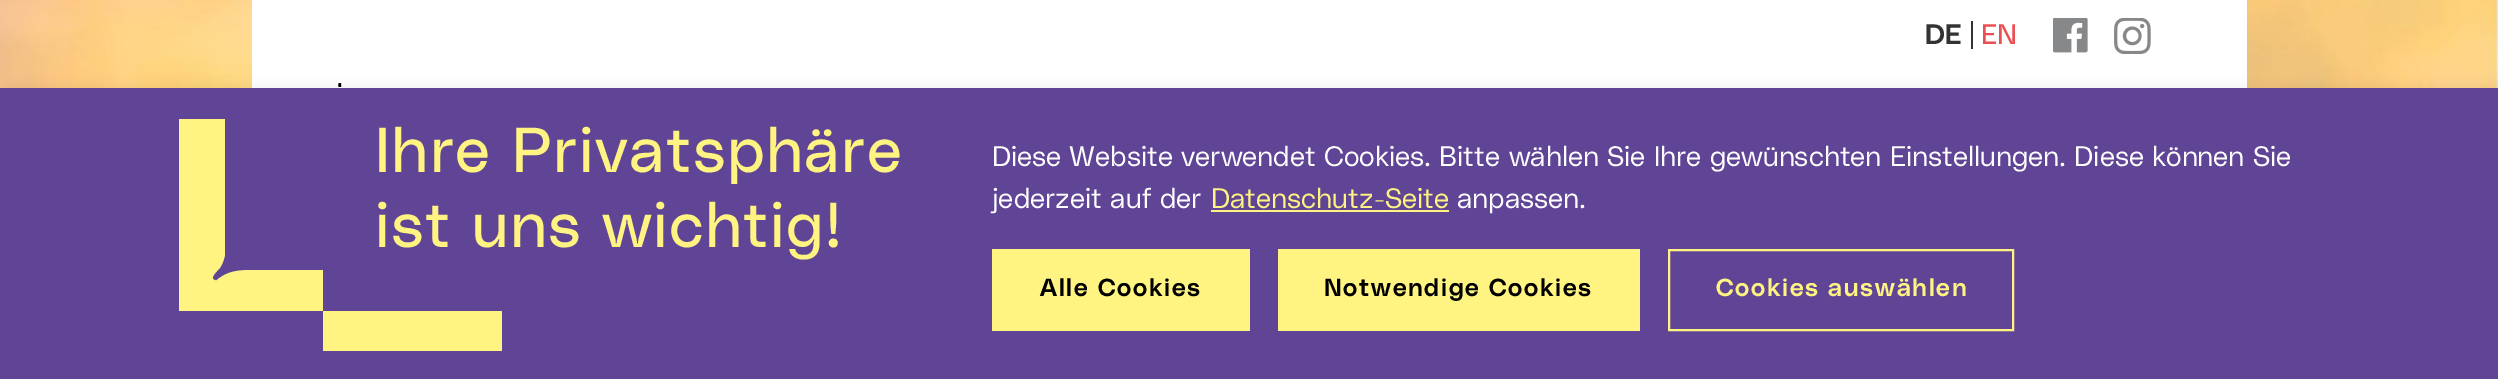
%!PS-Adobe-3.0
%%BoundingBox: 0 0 2498 379
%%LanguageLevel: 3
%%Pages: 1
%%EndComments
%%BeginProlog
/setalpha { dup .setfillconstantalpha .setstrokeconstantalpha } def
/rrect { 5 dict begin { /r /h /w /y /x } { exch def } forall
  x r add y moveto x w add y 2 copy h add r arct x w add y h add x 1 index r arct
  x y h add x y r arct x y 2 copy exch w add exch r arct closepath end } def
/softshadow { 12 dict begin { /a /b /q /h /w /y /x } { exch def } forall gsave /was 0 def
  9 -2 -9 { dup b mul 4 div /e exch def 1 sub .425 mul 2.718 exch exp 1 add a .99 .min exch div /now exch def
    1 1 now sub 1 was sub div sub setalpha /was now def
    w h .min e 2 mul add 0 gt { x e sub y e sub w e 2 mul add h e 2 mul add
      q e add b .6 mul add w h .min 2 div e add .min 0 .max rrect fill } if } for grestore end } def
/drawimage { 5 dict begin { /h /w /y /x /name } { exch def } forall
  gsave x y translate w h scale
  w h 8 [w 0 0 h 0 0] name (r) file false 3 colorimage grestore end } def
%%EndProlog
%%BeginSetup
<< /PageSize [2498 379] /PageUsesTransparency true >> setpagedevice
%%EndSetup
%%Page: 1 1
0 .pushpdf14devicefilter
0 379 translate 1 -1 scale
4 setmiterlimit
1 setgray
0 0 2498 379 rectfill
(images/1.raw) 0 0 2498 88 drawimage
252 0 1995 88 rectfill
0.2 setgray
1971 21 2 28 rectfill
(images/2.raw) 2053 18 35 35 drawimage
(images/3.raw) 2114 18 37 36 drawimage
(images/4.raw) 338 83 4 4 drawimage
0 setgray
9 96 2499 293 0 9 0.19 softshadow
0.376 0.271 0.588 setrgbcolor
0 88 2498 291 rectfill
gsave
179 119 323 233 rectclip
1 0.953 0.506 setrgbcolor
newpath 502 311 moveto 502 351 lineto 323 351 lineto 323 311 lineto closepath 255 270 moveto 243 270 231 270 221 277 curveto 218 279 lineto 217 280 216 281 215 280 curveto 208 279 219 269 220 268 curveto 221 266 lineto 223 263 224 259 225 255 curveto 225 119 lineto 178 119 lineto 178 311 lineto 323 311 lineto 323 270 lineto closepath fill
grestore
1 0.953 0.506 setrgbcolor
1211 210 238 2 rectfill
992 249 258 82 rectfill
1278 249 362 82 rectfill
2 setlinewidth
1669 250 344 80 rectstroke
/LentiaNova-SemiBold [28 0 0 -28 0 0] selectfont
0.2 setgray
1925 44 moveto (DE) show
/LentiaNova-Regular [28 0 0 -28 0 0] selectfont
0.918 0.31 0.325 setrgbcolor
1981 44 moveto (EN) show
/LentiaNova-Regular [63 0 0 -63 0 0] selectfont
1 0.953 0.506 setrgbcolor
375 172 moveto 1.3 0 (Ihre Privatsphäre) ashow
375 247 moveto 1.3 0 (ist uns wichtig!) ashow
/LentiaNova-Light [28 0 0 -28 0 0] selectfont
1 setgray
992 166 moveto (Diese Website verwendet Cookies. Bitte wählen Sie Ihre gewünschten Einstellungen. Diese können Sie) show
992 208 moveto (jederzeit auf der) show
1 0.953 0.506 setrgbcolor
1211 208 moveto (Datenschutz-Seite) show
1 setgray
1457 208 moveto (anpassen.) show
/LentiaNova-SemiBold [24.5 0 0 -24.5 0 0] selectfont
0 setgray
1040 296 moveto 1.75 0 (Alle Cookies) ashow
1324 296 moveto 1.75 0 (Notwendige Cookies) ashow
1 0.953 0.506 setrgbcolor
1716 296 moveto 1.75 0 (Cookies auswählen) ashow
.poppdf14devicefilter showpage
%%EOF
